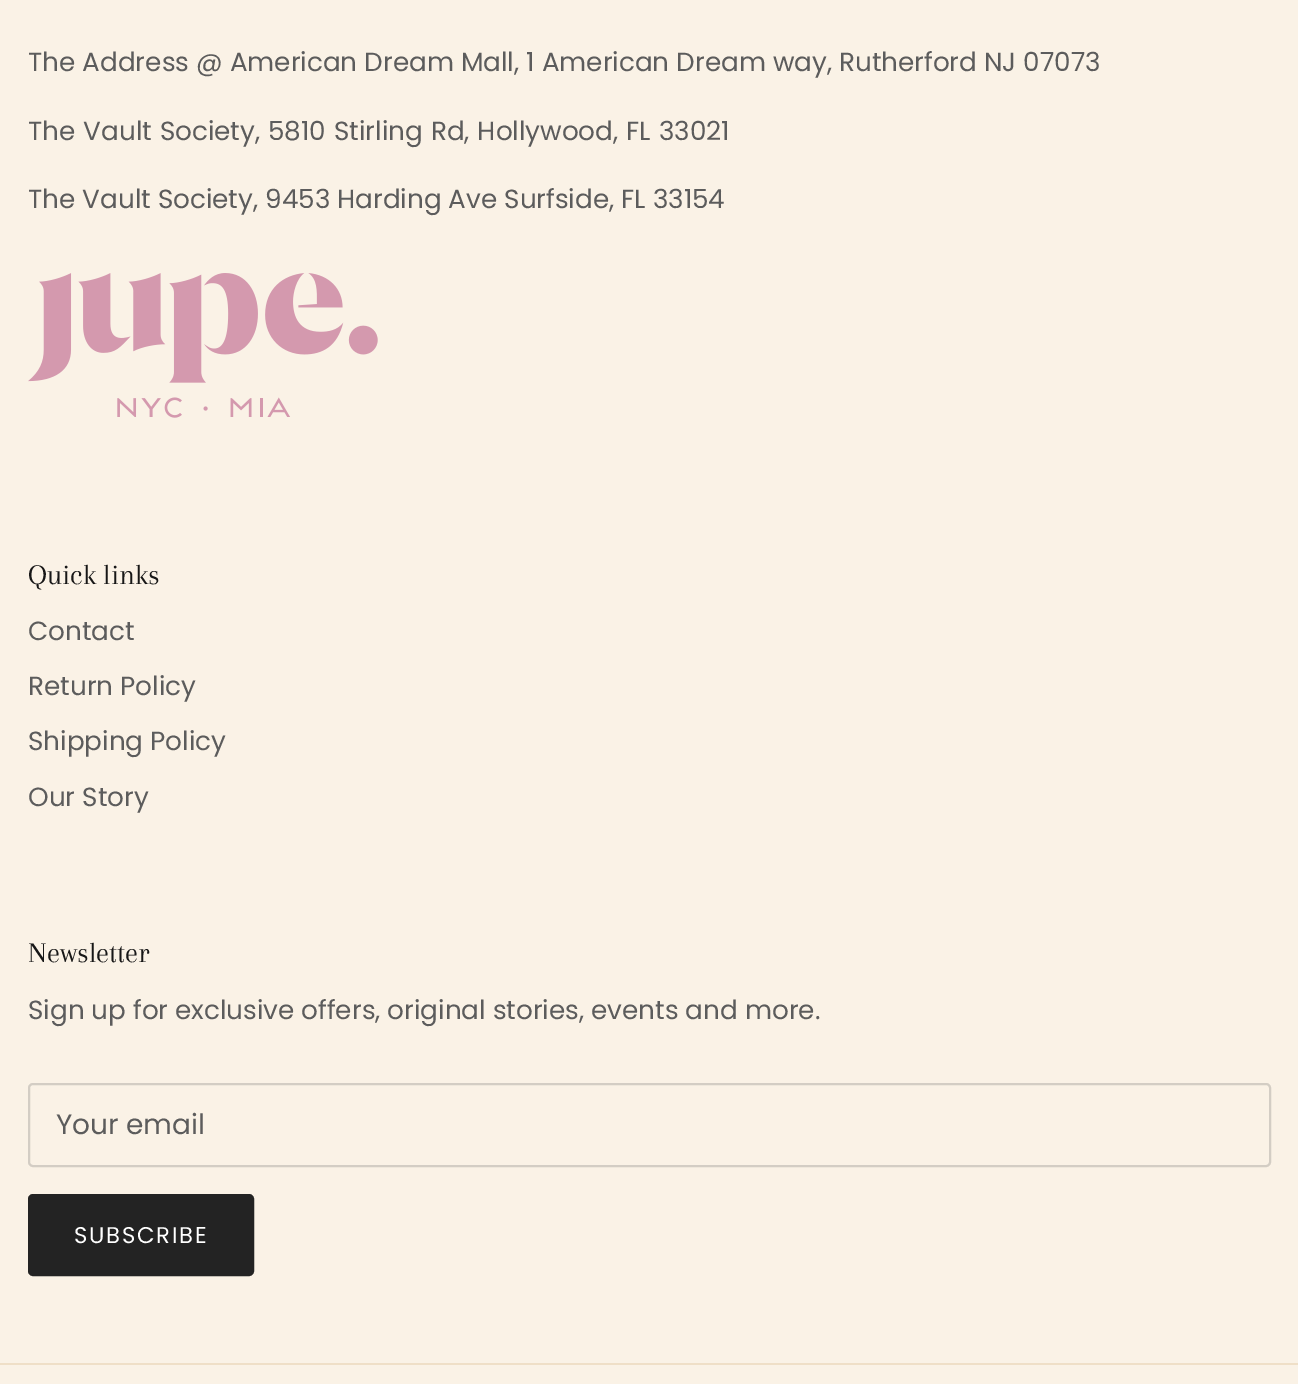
%!PS-Adobe-3.0
%%BoundingBox: 0 0 1298 1384
%%LanguageLevel: 3
%%Pages: 1
%%EndComments
%%BeginProlog
/rrect { 5 dict begin { /r /h /w /y /x } { exch def } forall
  x r add y moveto x w add y 2 copy h add r arct x w add y h add x 1 index r arct
  x y h add x y r arct x y 2 copy exch w add exch r arct closepath end } def
/drawimage { 5 dict begin { /h /w /y /x /name } { exch def } forall
  gsave x y translate w h scale
  w h 8 [w 0 0 h 0 0] name (r) file false 3 colorimage grestore end } def
%%EndProlog
%%BeginSetup
<< /PageSize [1298 1384] >> setpagedevice
%%EndSetup
%%Page: 1 1
0 1384 translate 1 -1 scale
4 setmiterlimit
0.98 0.949 0.902 setrgbcolor
0 0 1298 1384 rectfill
(images/1.raw) 28 273 350 145 drawimage
0.827 0.804 0.769 setrgbcolor
2 setlinewidth
29 1084 1241 82 4 rrect stroke
0.137 setgray
29 1195 224 80 4 rrect gsave fill grestore
stroke
0.937 0.875 0.78 setrgbcolor
0 1363 1298 2 rectfill
/Poppins-Regular [26.25 0 0 -26.25 0 0] selectfont
0.361 setgray
28 71 moveto (The Address @ American Dream Mall, 1 American Dream way, Rutherford NJ 07073) show
28 140 moveto 1 0 32 (The Vault Society, 5810 Stirling Rd, Hollywood, FL 33021) widthshow
28 208 moveto (The Vault Society, 9453 Harding Ave Surfside, FL 33154) show
/Arapey-Regular [29.5 0 0 -29.5 0 0] selectfont
0.09 setgray
28 584 moveto (Quick links) show
/Poppins-Regular [26.25 0 0 -26.25 0 0] selectfont
0.361 setgray
28 640 moveto (Contact) show
28 695 moveto (Return Policy) show
28 750 moveto (Shipping Policy) show
28 806 moveto (Our Story) show
/Arapey-Regular [29.5 0 0 -29.5 0 0] selectfont
0.09 setgray
28 962 moveto (Newsletter) show
/Poppins-Regular [26.25 0 0 -26.25 0 0] selectfont
0.361 setgray
28 1019 moveto (Sign up for exclusive offers, original stories, events and more.) show
/Poppins-Regular [28 0 0 -28 0 0] selectfont
56 1134 moveto (Your email) show
/Poppins-Regular [22.75 0 0 -22.75 0 0] selectfont
1 setgray
74 1243 moveto 1.75 0 (SUBSCRIBE) ashow
showpage
%%EOF
